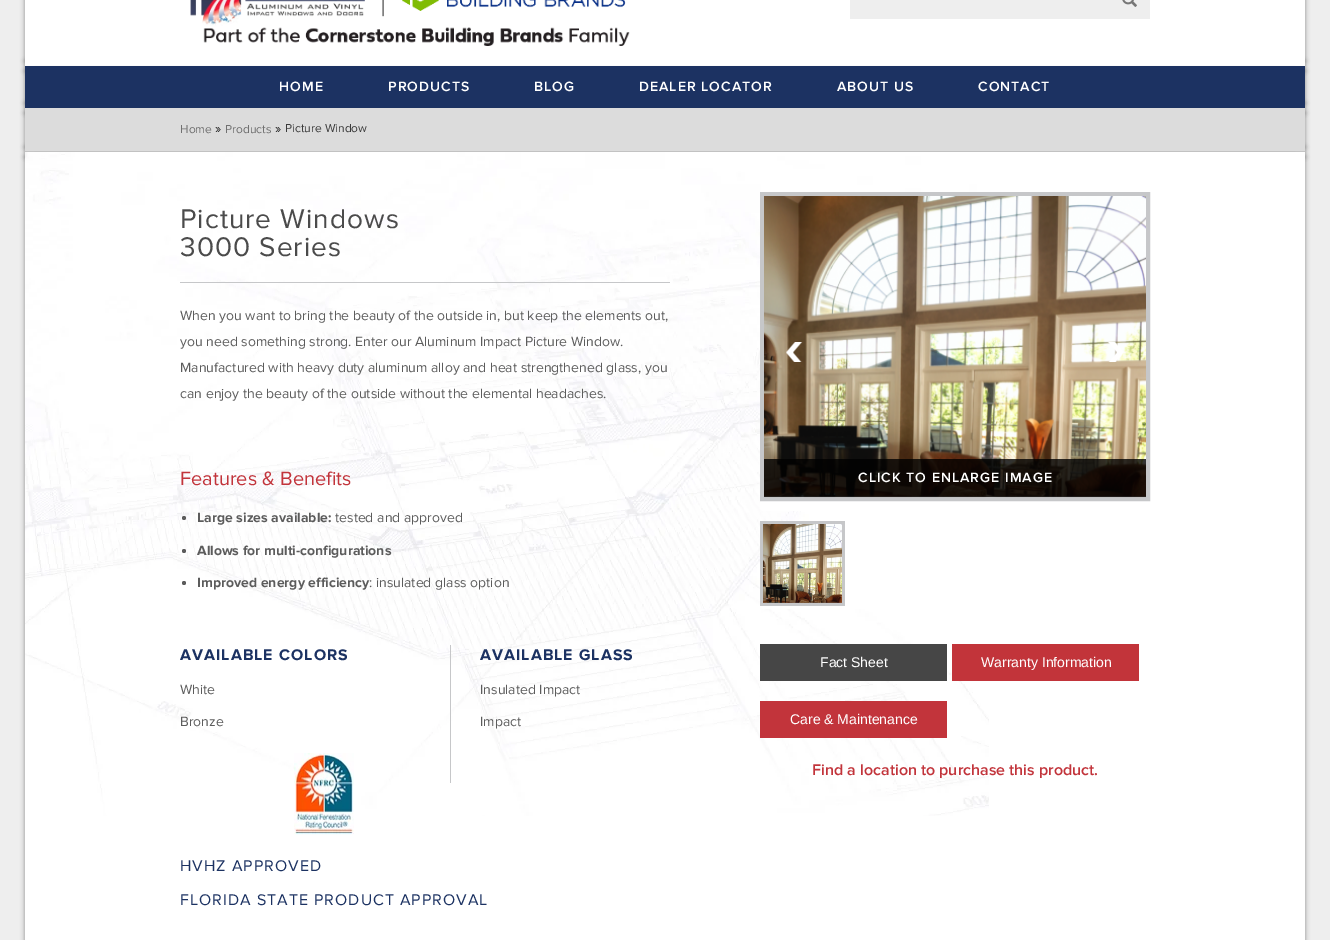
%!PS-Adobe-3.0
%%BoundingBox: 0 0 1330 940
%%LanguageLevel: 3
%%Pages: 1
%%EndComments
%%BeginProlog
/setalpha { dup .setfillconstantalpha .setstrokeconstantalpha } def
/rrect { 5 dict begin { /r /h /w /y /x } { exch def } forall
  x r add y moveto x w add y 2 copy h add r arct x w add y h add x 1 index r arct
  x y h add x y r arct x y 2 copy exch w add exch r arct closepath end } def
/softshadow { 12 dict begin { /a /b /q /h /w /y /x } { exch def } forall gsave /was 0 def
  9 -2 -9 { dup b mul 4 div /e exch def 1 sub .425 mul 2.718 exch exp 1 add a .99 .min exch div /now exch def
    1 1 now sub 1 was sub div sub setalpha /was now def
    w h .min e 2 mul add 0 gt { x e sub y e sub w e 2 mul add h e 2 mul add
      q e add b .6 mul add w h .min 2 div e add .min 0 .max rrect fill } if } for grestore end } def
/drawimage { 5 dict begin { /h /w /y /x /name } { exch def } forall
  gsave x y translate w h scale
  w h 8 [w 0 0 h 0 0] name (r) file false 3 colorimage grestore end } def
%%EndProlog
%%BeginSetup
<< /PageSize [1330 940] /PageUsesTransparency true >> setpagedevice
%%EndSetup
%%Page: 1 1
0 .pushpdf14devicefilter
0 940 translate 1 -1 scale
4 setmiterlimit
0.933 setgray
0 0 1330 940 rectfill
0 setgray
25 -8 1270 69 0 2.5 0.4 softshadow
35 -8 1270 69 0 2.5 0.4 softshadow
25 61 1270 10 0 2.5 0.4 softshadow
35 61 1270 10 0 2.5 0.4 softshadow
1 setgray
25 0 1280 66 rectfill
(images/1.raw) 190 0 440 46 drawimage
0.933 setgray
850 0 300 19 rectfill
(images/2.raw) 1122 0 15 7 drawimage
0 setgray
25 71 1270 32 0 2.5 0.4 softshadow
35 71 1270 32 0 2.5 0.4 softshadow
25 103 1270 10 0 2.5 0.4 softshadow
35 103 1270 10 0 2.5 0.4 softshadow
0.11 0.196 0.384 setrgbcolor
25 66 1280 42 rectfill
0 setgray
25 113 1270 34 0 2.5 0.4 softshadow
35 113 1270 34 0 2.5 0.4 softshadow
25 147 1270 10 0 2.5 0.4 softshadow
35 147 1270 10 0 2.5 0.4 softshadow
0.863 setgray
25 108 1280 43 rectfill
0.776 setgray
25 151 1280 1 rectfill
0 setgray
25 157 1270 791 0 2.5 0.4 softshadow
35 157 1270 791 0 2.5 0.4 softshadow
1 setgray
25 152 1280 788 rectfill
(images/3.raw) 25 152 964 664 drawimage
0.776 0.78 0.788 setrgbcolor
180 282 490 1 rectfill
0.361 setgray
newpath 184 518 2 0 360 arc closepath fill
newpath 184 551 2 0 360 arc closepath fill
newpath 184 583 2 0 360 arc closepath fill
0.776 0.78 0.788 setrgbcolor
450 645 1 138 rectfill
(images/4.raw) 294 753 60 82 drawimage
1 setgray
760 192 390 319 4 rrect fill
0.776 0.78 0.788 setrgbcolor
4 setlinewidth
762 194 386 305 rectstroke
(images/7.raw) 764 196 382 302 drawimage
(images/5.raw) 786 342 17 20 drawimage
(images/6.raw) 1107 342 17 20 drawimage
0.8 setalpha
0 setgray
764 459 382 38 rectfill
1 setalpha
1 setgray
760 521 390 88 4 rrect fill
0.776 0.78 0.788 setrgbcolor
760 521 85 85 rectfill
(images/8.raw) 763 524 79 79 drawimage
0.275 setgray
760 644 187 37 rectfill
0.761 0.204 0.227 setrgbcolor
952 644 187 37 rectfill
0.761 0.204 0.231 setrgbcolor
760 701 187 37 rectfill
/ProximaNova-SemiBold [14 0 0 -14 0 0] selectfont
1 setgray
279 91 moveto 1 0 (HOME) ashow
388 91 moveto 1 0 (PRODUCTS) ashow
534 91 moveto 1 0 (BLOG) ashow
639 91 moveto 1 0 (DEALER LOCATOR) ashow
837 91 moveto 1 0 (ABOUT US) ashow
978 91 moveto 1 0 (CONTACT) ashow
/ProximaNova-Regular [12 0 0 -12 0 0] selectfont
0.443 setgray
180 133 moveto (Home) show
/ProximaNova-Regular [14 0 0 -14 0 0] selectfont
0.133 setgray
215 133 moveto (») show
/ProximaNova-Regular [12 0 0 -12 0 0] selectfont
0.443 setgray
225 133 moveto (Products) show
/ProximaNova-Regular [14 0 0 -14 0 0] selectfont
0.133 setgray
275 133 moveto (») show
/ProximaNova-Regular [12 0 0 -12 0 0] selectfont
0.231 setgray
285 132 moveto (Picture Window) show
/ProximaNova-Regular [28 0 0 -28 0 0] selectfont
0.294 setgray
180 228 moveto 1 0 (Picture Windows) ashow
180 256 moveto 1 0 (3000 Series) ashow
/ProximaNova-Regular [14 0 0 -14 0 0] selectfont
0.361 setgray
180 320 moveto (When you want to bring the beauty of the outside in, but keep the elements out,) show
180 346 moveto (you need something strong. Enter our Aluminum Impact Picture Window.) show
180 372 moveto (Manufactured with heavy duty aluminum alloy and heat strengthened glass, you) show
180 398 moveto (can enjoy the beauty of the outside without the elemental headaches.) show
/ProximaNova-Regular [20 0 0 -20 0 0] selectfont
0.761 0.204 0.231 setrgbcolor
180 485 moveto (Features & Benefits) show
/ProximaNova-Bold [14 0 0 -14 0 0] selectfont
0.361 setgray
197 522 moveto (Large sizes available:) show
/ProximaNova-Regular [14 0 0 -14 0 0] selectfont
335 522 moveto (tested and approved) show
/ProximaNova-Bold [14 0 0 -14 0 0] selectfont
197 555 moveto (Allows for multi-configurations) show
197 587 moveto (Improved energy efficiency) show
/ProximaNova-Regular [14 0 0 -14 0 0] selectfont
369 587 moveto (: insulated glass option) show
/ProximaNova-Bold [16 0 0 -16 0 0] selectfont
0.11 0.196 0.384 setrgbcolor
180 660 moveto 1 0 (AVAILABLE COLORS) ashow
/ProximaNova-Regular [14 0 0 -14 0 0] selectfont
0.361 setgray
180 694 moveto (White) show
180 726 moveto (Bronze) show
/ProximaNova-Bold [16 0 0 -16 0 0] selectfont
0.11 0.196 0.384 setrgbcolor
480 660 moveto 1 0 (AVAILABLE GLASS) ashow
/ProximaNova-Regular [14 0 0 -14 0 0] selectfont
0.361 setgray
480 694 moveto (Insulated Impact) show
480 726 moveto (Impact) show
/ProximaNova-Regular [16 0 0 -16 0 0] selectfont
0.11 0.196 0.384 setrgbcolor
180 871 moveto 1 0 (HVHZ APPROVED) ashow
180 905 moveto 1 0 (FLORIDA STATE PRODUCT APPROVAL) ashow
/ProximaNova-SemiBold [14 0 0 -14 0 0] selectfont
1 setgray
858 482 moveto 1 0 (CLICK TO ENLARGE IMAGE) ashow
/LiberationSans-Regular [14 0 0 -14 0 0] selectfont
820 667 moveto (Fact Sheet) show
981 667 moveto (Warranty Information) show
790 724 moveto (Care & Maintenance) show
/ProximaNova-SemiBold [16 0 0 -16 0 0] selectfont
0.761 0.204 0.231 setrgbcolor
812 775 moveto (Find a location to purchase this product.) show
.poppdf14devicefilter showpage
%%EOF
